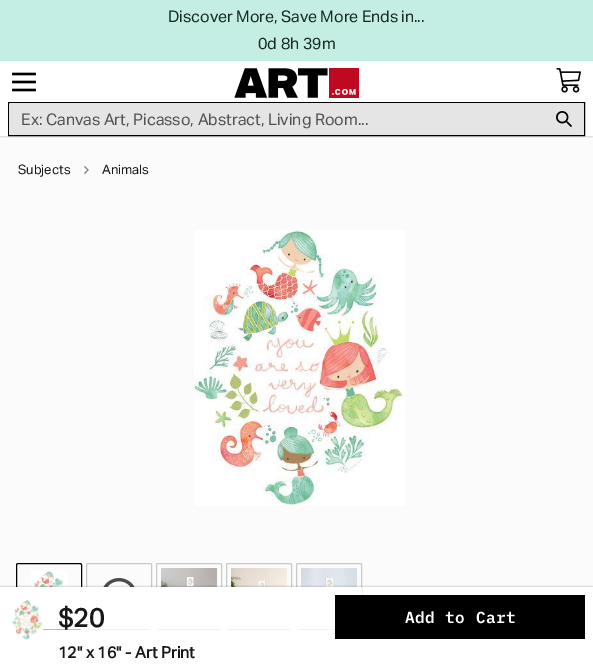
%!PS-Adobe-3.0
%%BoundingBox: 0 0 593 667
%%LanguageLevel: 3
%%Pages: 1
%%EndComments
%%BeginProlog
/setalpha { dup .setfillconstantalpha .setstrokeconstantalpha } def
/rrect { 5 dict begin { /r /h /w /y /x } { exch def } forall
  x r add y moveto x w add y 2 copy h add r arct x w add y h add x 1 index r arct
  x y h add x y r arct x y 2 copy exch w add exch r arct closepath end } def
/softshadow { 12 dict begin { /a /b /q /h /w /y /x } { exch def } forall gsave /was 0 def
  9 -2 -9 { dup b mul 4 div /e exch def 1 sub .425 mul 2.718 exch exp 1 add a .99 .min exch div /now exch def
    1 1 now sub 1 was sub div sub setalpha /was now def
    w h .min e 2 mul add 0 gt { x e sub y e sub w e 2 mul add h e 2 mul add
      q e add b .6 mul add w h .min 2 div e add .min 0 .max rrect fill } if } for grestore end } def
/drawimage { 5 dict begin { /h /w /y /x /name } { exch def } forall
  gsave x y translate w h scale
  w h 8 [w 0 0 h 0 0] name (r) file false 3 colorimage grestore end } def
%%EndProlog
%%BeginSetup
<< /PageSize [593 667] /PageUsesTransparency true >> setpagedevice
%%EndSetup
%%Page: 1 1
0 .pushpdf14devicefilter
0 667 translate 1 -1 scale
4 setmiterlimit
1 setgray
0 0 593 667 rectfill
0.984 setgray
0 136 593 451 rectfill
gsave
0 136 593 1 rectclip
0 setgray
0 62 593 75 0 1 0.06 softshadow
grestore
gsave
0 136 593 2 rectclip
0 setgray
0 62 593 75 0 1.5 0.1 softshadow
grestore
0.769 0.933 0.89 setrgbcolor
0 0 593 61 rectfill
(images/1.raw) 12 72 24 20 drawimage
(images/2.raw) 234 68 125 30 drawimage
(images/3.raw) 556 68 25 25 drawimage
0 setgray
8.5 102.5 576 33 rectstroke
0.898 setgray
newpath 11 103 moveto 543 103 lineto 543 135 lineto 11 135 lineto 10 135 9 134 9 133 curveto 9 105 lineto 9 104 10 103 11 103 curveto closepath fill
newpath 543 103 moveto 582 103 lineto 583 103 584 104 584 105 curveto 584 133 lineto 584 134 583 135 582 135 curveto 543 135 lineto closepath fill
(images/4.raw) 556 111 16 16 drawimage
(images/5.raw) 84 166 5 8 drawimage
(images/6.raw) 194 230 211 276 drawimage
0 setgray
16.5 563.5 65 65 1.5 rrect stroke
(images/7.raw) 31 571 37 16 drawimage
0.788 setgray
86.5 563.5 65 65 1.5 rrect stroke
(images/8.raw) 103 578 32 9 drawimage
156.5 563.5 65 65 1.5 rrect stroke
(images/9.raw) 161 568 56 19 drawimage
226.5 563.5 65 65 1.5 rrect stroke
(images/10.raw) 231 568 56 19 drawimage
296.5 563.5 65 65 1.5 rrect stroke
(images/11.raw) 301 568 56 19 drawimage
1 setgray
16 587 346 42 rectfill
gsave
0 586 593 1 rectclip
0 setgray
0 586 593 80 0 1 0.06 softshadow
grestore
gsave
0 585 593 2 rectclip
0 setgray
0 586 593 80 0 1.5 0.1 softshadow
grestore
(images/12.raw) 12 599 31 41 drawimage
0 setgray
335 595 250 44 rectfill
/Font-Regular [16 0 0 -16 0 0] selectfont
0.09 0.165 0.133 setrgbcolor
168 22 moveto -0.5 0 32 (Discover More, Save More Ends in...) widthshow
258 49 moveto (0d 8h 39m) show
0.322 setgray
21 125 moveto (Ex: Canvas Art, Picasso, Abstract, Living Room...) show
/Font-Regular [13 0 0 -13 0 0] selectfont
0.094 setgray
18 174 moveto (Subjects) show
102 174 moveto (Animals) show
/Font-Bold [26 0 0 -26 0 0] selectfont
58 627 moveto ($20) show
/IBMPlexMono-SemiBold [16 0 0 -16 0 0] selectfont
1 setgray
405 623 moveto 0.5 0 (Add to Cart) ashow
/Font-Bold [16 0 0 -16 0 0] selectfont
0.094 setgray
58 658 moveto (12" x 16" - Art Print) show
.poppdf14devicefilter showpage
%%EOF
